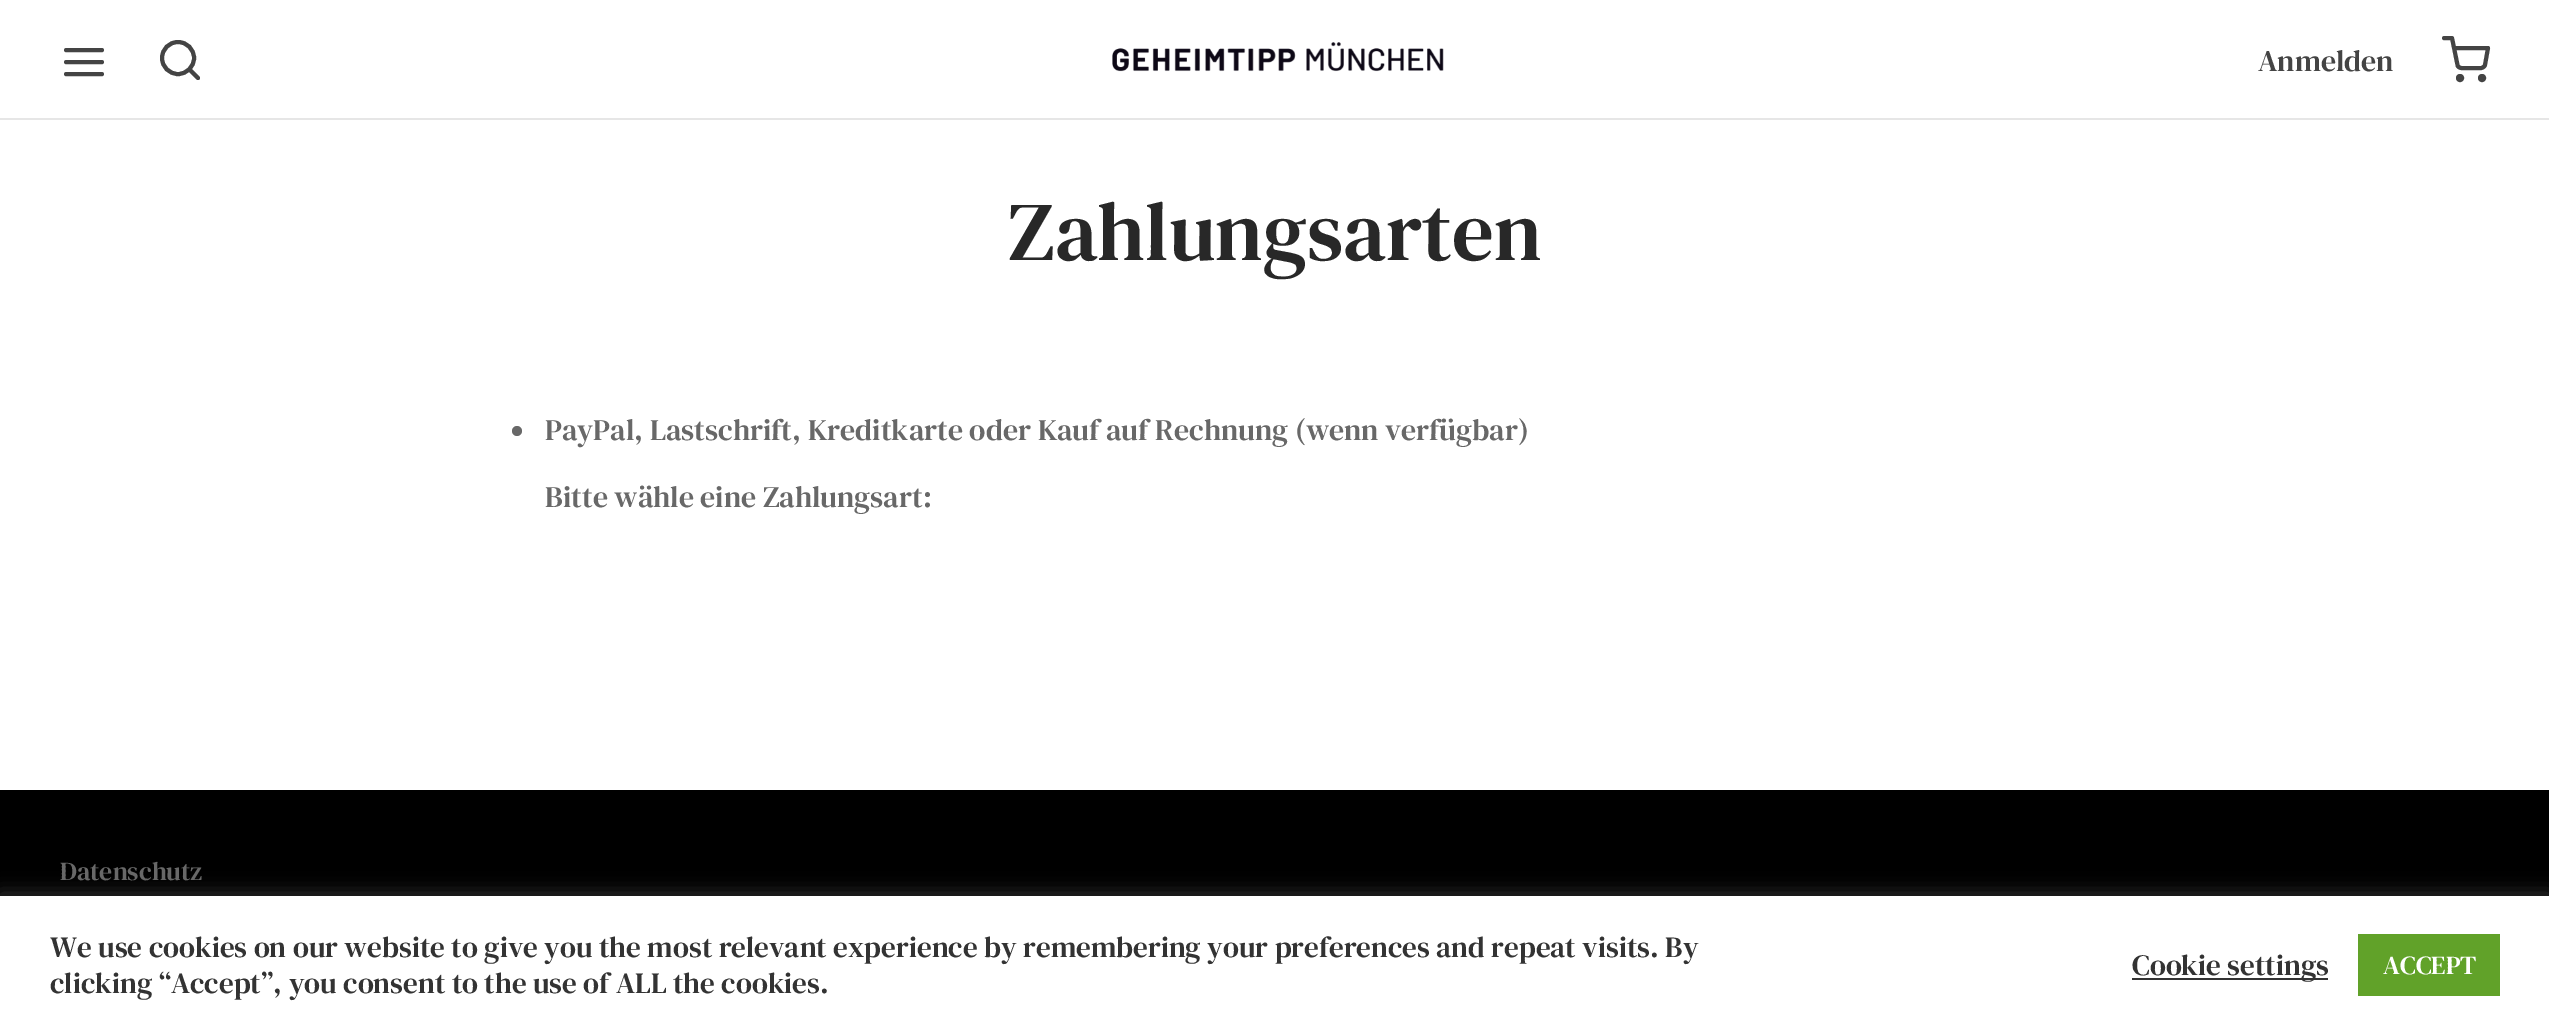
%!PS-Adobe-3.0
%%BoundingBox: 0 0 2549 1034
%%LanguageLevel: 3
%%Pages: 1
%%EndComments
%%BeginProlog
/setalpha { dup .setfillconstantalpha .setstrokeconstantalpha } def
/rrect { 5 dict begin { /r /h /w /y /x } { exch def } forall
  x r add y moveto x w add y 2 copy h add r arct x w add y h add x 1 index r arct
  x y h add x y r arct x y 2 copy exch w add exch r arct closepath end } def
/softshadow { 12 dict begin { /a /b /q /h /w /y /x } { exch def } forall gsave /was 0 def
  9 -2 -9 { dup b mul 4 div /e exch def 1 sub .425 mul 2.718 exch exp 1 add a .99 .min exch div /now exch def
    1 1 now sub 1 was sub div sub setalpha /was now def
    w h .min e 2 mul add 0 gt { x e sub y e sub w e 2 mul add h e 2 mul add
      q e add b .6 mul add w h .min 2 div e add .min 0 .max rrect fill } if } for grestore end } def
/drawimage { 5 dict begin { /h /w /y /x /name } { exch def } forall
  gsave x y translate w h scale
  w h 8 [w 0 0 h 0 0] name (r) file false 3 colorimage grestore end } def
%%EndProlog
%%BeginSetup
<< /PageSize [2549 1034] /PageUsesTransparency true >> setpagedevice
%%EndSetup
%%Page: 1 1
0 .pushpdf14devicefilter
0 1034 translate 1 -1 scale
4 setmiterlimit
1 setgray
0 0 2549 1034 rectfill
0.267 setgray
4 setlinewidth
1 setlinecap
1 setlinejoin
newpath 66 62 moveto 102 62 lineto 66 50 moveto 102 50 lineto 66 74 moveto 102 74 lineto stroke
0 setlinecap
0 setlinejoin
newpath 178 58 16 0 360 arc closepath stroke
1 setlinecap
1 setlinejoin
newpath 198 78 moveto 189.5 69.5 lineto stroke
(images/1.raw) 1112 42 332 30 drawimage
0 setlinecap
0 setlinejoin
newpath 2460 78 2 0 360 arc closepath stroke
newpath 2482 78 2 0 360 arc closepath stroke
1 setlinecap
1 setlinejoin
newpath 2444 38 moveto 2452 38 lineto 2457.5 65 lineto 2457.5 66.5 2459.5 68 2461.5 68 curveto 2481 68 lineto 2482.5 68 2484.5 66.5 2485 65 curveto 2488 48 lineto 2454 48 lineto stroke
0.902 setgray
0 118 2549 2 rectfill
0.408 setgray
newpath 517 431 5 0 360 arc closepath fill
0 setgray
0 790 2549 106 rectfill
0.675 0.671 0.671 setrgbcolor
0 894 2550 138 0 10 0.3 softshadow
1 setgray
0 896 2549 138 rectfill
0.2 setgray
2132 978 196 2 rectfill
0.38 0.635 0.161 setrgbcolor
2358 934 142 62 rectfill
/DMSerifText-Regular [30 0 0 -30 0 0] selectfont
0.267 setgray
2258 71 moveto (Anmelden) show
/DMSerifText-Regular [83.25 0 0 -83.25 0 0] selectfont
0.157 setgray
1008 260 moveto (Zahlungsarten) show
/DMSerifText-Regular [30 0 0 -30 0 0] selectfont
0.408 setgray
545 440 moveto (PayPal, Lastschrift, Kreditkarte oder Kauf auf Rechnung \(wenn verfügbar\)) show
545 507 moveto (Bitte wähle eine Zahlungsart:) show
/DMSerifText-Regular [26 0 0 -26 0 0] selectfont
60 880 moveto (Datenschutz) show
/DMSerifText-Regular [29.33 0 0 -29.33 0 0] selectfont
0.2 setgray
50 957 moveto (We use cookies on our website to give you the most relevant experience by remembering your preferences and repeat visits. By) show
50 993 moveto (clicking “Accept”, you consent to the use of ALL the cookies.) show
2132 975 moveto (Cookie settings) show
/DMSerifText-Regular [26 0 0 -26 0 0] selectfont
1 setgray
2383 974 moveto (ACCEPT) show
.poppdf14devicefilter showpage
%%EOF
